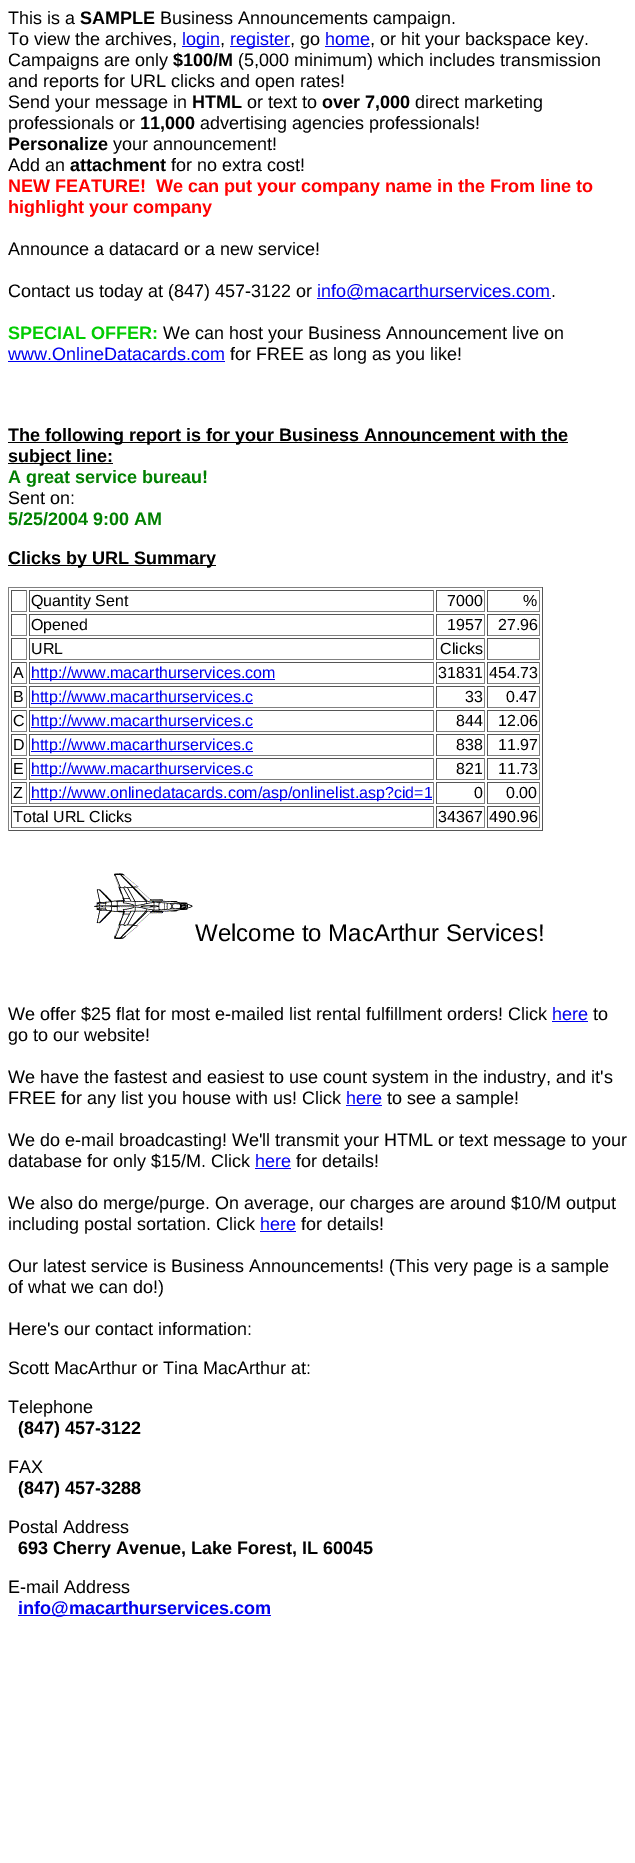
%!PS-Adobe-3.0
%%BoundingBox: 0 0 635 1863
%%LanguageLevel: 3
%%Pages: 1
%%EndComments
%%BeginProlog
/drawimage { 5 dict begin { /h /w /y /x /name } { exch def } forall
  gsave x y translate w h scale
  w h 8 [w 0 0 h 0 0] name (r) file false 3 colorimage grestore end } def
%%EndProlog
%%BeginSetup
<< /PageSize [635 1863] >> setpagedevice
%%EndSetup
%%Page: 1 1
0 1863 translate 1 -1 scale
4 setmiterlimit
1 setgray
0 0 635 1863 rectfill
0 0 0.933 setrgbcolor
182 46 38 1 rectfill
230 46 60 1 rectfill
325 46 45 1 rectfill
317 298 234 1 rectfill
8 361 217 1 rectfill
0 setgray
8 442 560 1 rectfill
8 463 105 1 rectfill
8 565 208 1 rectfill
0.502 setgray
8 587 535 1 rectfill
0.333 setgray
542 587 1 244 rectfill
8 830 535 1 rectfill
0.502 setgray
8 587 1 244 rectfill
0.333 setgray
11 590 16 1 rectfill
0.502 setgray
26 590 1 22 rectfill
11 611 16 1 rectfill
0.333 setgray
11 590 1 22 rectfill
29 590 405 1 rectfill
0.502 setgray
433 590 1 22 rectfill
29 611 405 1 rectfill
0.333 setgray
29 590 1 22 rectfill
436 590 49 1 rectfill
0.502 setgray
484 590 1 22 rectfill
436 611 49 1 rectfill
0.333 setgray
436 590 1 22 rectfill
487 590 53 1 rectfill
0.502 setgray
539 590 1 22 rectfill
487 611 53 1 rectfill
0.333 setgray
487 590 1 22 rectfill
11 614 16 1 rectfill
0.502 setgray
26 614 1 22 rectfill
11 635 16 1 rectfill
0.333 setgray
11 614 1 22 rectfill
29 614 405 1 rectfill
0.502 setgray
433 614 1 22 rectfill
29 635 405 1 rectfill
0.333 setgray
29 614 1 22 rectfill
436 614 49 1 rectfill
0.502 setgray
484 614 1 22 rectfill
436 635 49 1 rectfill
0.333 setgray
436 614 1 22 rectfill
487 614 53 1 rectfill
0.502 setgray
539 614 1 22 rectfill
487 635 53 1 rectfill
0.333 setgray
487 614 1 22 rectfill
11 638 16 1 rectfill
0.502 setgray
26 638 1 22 rectfill
11 659 16 1 rectfill
0.333 setgray
11 638 1 22 rectfill
29 638 405 1 rectfill
0.502 setgray
433 638 1 22 rectfill
29 659 405 1 rectfill
0.333 setgray
29 638 1 22 rectfill
436 638 49 1 rectfill
0.502 setgray
484 638 1 22 rectfill
436 659 49 1 rectfill
0.333 setgray
436 638 1 22 rectfill
487 638 53 1 rectfill
0.502 setgray
539 638 1 22 rectfill
487 659 53 1 rectfill
0.333 setgray
487 638 1 22 rectfill
11 662 16 1 rectfill
0.502 setgray
26 662 1 22 rectfill
11 683 16 1 rectfill
0.333 setgray
11 662 1 22 rectfill
29 662 405 1 rectfill
0.502 setgray
433 662 1 22 rectfill
29 683 405 1 rectfill
0.333 setgray
29 662 1 22 rectfill
0 0 0.933 setrgbcolor
31 679 244 1 rectfill
0.333 setgray
436 662 49 1 rectfill
0.502 setgray
484 662 1 22 rectfill
436 683 49 1 rectfill
0.333 setgray
436 662 1 22 rectfill
487 662 53 1 rectfill
0.502 setgray
539 662 1 22 rectfill
487 683 53 1 rectfill
0.333 setgray
487 662 1 22 rectfill
11 686 16 1 rectfill
0.502 setgray
26 686 1 22 rectfill
11 707 16 1 rectfill
0.333 setgray
11 686 1 22 rectfill
29 686 405 1 rectfill
0.502 setgray
433 686 1 22 rectfill
29 707 405 1 rectfill
0.333 setgray
29 686 1 22 rectfill
0 0 0.933 setrgbcolor
31 703 222 1 rectfill
0.333 setgray
436 686 49 1 rectfill
0.502 setgray
484 686 1 22 rectfill
436 707 49 1 rectfill
0.333 setgray
436 686 1 22 rectfill
487 686 53 1 rectfill
0.502 setgray
539 686 1 22 rectfill
487 707 53 1 rectfill
0.333 setgray
487 686 1 22 rectfill
11 710 16 1 rectfill
0.502 setgray
26 710 1 22 rectfill
11 731 16 1 rectfill
0.333 setgray
11 710 1 22 rectfill
29 710 405 1 rectfill
0.502 setgray
433 710 1 22 rectfill
29 731 405 1 rectfill
0.333 setgray
29 710 1 22 rectfill
0 0 0.933 setrgbcolor
31 727 222 1 rectfill
0.333 setgray
436 710 49 1 rectfill
0.502 setgray
484 710 1 22 rectfill
436 731 49 1 rectfill
0.333 setgray
436 710 1 22 rectfill
487 710 53 1 rectfill
0.502 setgray
539 710 1 22 rectfill
487 731 53 1 rectfill
0.333 setgray
487 710 1 22 rectfill
11 734 16 1 rectfill
0.502 setgray
26 734 1 22 rectfill
11 755 16 1 rectfill
0.333 setgray
11 734 1 22 rectfill
29 734 405 1 rectfill
0.502 setgray
433 734 1 22 rectfill
29 755 405 1 rectfill
0.333 setgray
29 734 1 22 rectfill
0 0 0.933 setrgbcolor
31 751 222 1 rectfill
0.333 setgray
436 734 49 1 rectfill
0.502 setgray
484 734 1 22 rectfill
436 755 49 1 rectfill
0.333 setgray
436 734 1 22 rectfill
487 734 53 1 rectfill
0.502 setgray
539 734 1 22 rectfill
487 755 53 1 rectfill
0.333 setgray
487 734 1 22 rectfill
11 758 16 1 rectfill
0.502 setgray
26 758 1 22 rectfill
11 779 16 1 rectfill
0.333 setgray
11 758 1 22 rectfill
29 758 405 1 rectfill
0.502 setgray
433 758 1 22 rectfill
29 779 405 1 rectfill
0.333 setgray
29 758 1 22 rectfill
0 0 0.933 setrgbcolor
31 775 222 1 rectfill
0.333 setgray
436 758 49 1 rectfill
0.502 setgray
484 758 1 22 rectfill
436 779 49 1 rectfill
0.333 setgray
436 758 1 22 rectfill
487 758 53 1 rectfill
0.502 setgray
539 758 1 22 rectfill
487 779 53 1 rectfill
0.333 setgray
487 758 1 22 rectfill
11 782 16 1 rectfill
0.502 setgray
26 782 1 22 rectfill
11 803 16 1 rectfill
0.333 setgray
11 782 1 22 rectfill
29 782 405 1 rectfill
0.502 setgray
433 782 1 22 rectfill
29 803 405 1 rectfill
0.333 setgray
29 782 1 22 rectfill
0 0 0.933 setrgbcolor
31 799 401 1 rectfill
0.333 setgray
436 782 49 1 rectfill
0.502 setgray
484 782 1 22 rectfill
436 803 49 1 rectfill
0.333 setgray
436 782 1 22 rectfill
487 782 53 1 rectfill
0.502 setgray
539 782 1 22 rectfill
487 803 53 1 rectfill
0.333 setgray
487 782 1 22 rectfill
11 806 423 1 rectfill
0.502 setgray
433 806 1 22 rectfill
11 827 423 1 rectfill
0.333 setgray
11 806 1 22 rectfill
436 806 49 1 rectfill
0.502 setgray
484 806 1 22 rectfill
436 827 49 1 rectfill
0.333 setgray
436 806 1 22 rectfill
487 806 53 1 rectfill
0.502 setgray
539 806 1 22 rectfill
487 827 53 1 rectfill
0.333 setgray
487 806 1 22 rectfill
(images/1.raw) 94 873 99 66 drawimage
0 0 0.933 setrgbcolor
552 1021 36 1 rectfill
346 1105 36 1 rectfill
255 1168 36 1 rectfill
260 1231 36 1 rectfill
18 1615 253 1 rectfill
/LiberationSans-Regular [18 0 0 -18 0 0] selectfont
0 setgray
8 24 moveto (This is a) show
/LiberationSans-Bold [18 0 0 -18 0 0] selectfont
80 24 moveto (SAMPLE) show
/LiberationSans-Regular [18 0 0 -18 0 0] selectfont
160 24 moveto (Business Announcements campaign.) show
8 45 moveto (To view the archives,) show
0 0 0.933 setrgbcolor
182 45 moveto (login) show
0 setgray
220 45 moveto (,) show
0 0 0.933 setrgbcolor
230 45 moveto (register) show
0 setgray
290 45 moveto (, go) show
0 0 0.933 setrgbcolor
325 45 moveto (home) show
0 setgray
370 45 moveto (, or hit your backspace key.) show
8 66 moveto (Campaigns are only) show
/LiberationSans-Bold [18 0 0 -18 0 0] selectfont
173 66 moveto ($100/M) show
/LiberationSans-Regular [18 0 0 -18 0 0] selectfont
238 66 moveto (\(5,000 minimum\) which includes transmission) show
8 87 moveto (and reports for URL clicks and open rates!) show
8 108 moveto (Send your message in) show
/LiberationSans-Bold [18 0 0 -18 0 0] selectfont
192 108 moveto (HTML) show
/LiberationSans-Regular [18 0 0 -18 0 0] selectfont
247 108 moveto (or text to) show
/LiberationSans-Bold [18 0 0 -18 0 0] selectfont
322 108 moveto (over 7,000) show
/LiberationSans-Regular [18 0 0 -18 0 0] selectfont
415 108 moveto (direct marketing) show
8 129 moveto (professionals or) show
/LiberationSans-Bold [18 0 0 -18 0 0] selectfont
140 129 moveto (11,000) show
/LiberationSans-Regular [18 0 0 -18 0 0] selectfont
200 129 moveto (advertising agencies professionals!) show
/LiberationSans-Bold [18 0 0 -18 0 0] selectfont
8 150 moveto (Personalize) show
/LiberationSans-Regular [18 0 0 -18 0 0] selectfont
113 150 moveto (your announcement!) show
8 171 moveto (Add an) show
/LiberationSans-Bold [18 0 0 -18 0 0] selectfont
70 171 moveto (attachment) show
/LiberationSans-Regular [18 0 0 -18 0 0] selectfont
171 171 moveto (for no extra cost!) show
/LiberationSans-Bold [18 0 0 -18 0 0] selectfont
1 0 0 setrgbcolor
8 192 moveto (NEW FEATURE!  We can put your company name in the From line to) show
8 213 moveto (highlight your company) show
/LiberationSans-Regular [18 0 0 -18 0 0] selectfont
0 setgray
8 255 moveto (Announce a datacard or a new service!) show
8 297 moveto (Contact us today at \(847\) 457-3122 or) show
0 0 0.933 setrgbcolor
317 297 moveto (info@macarthurservices.com) show
0 setgray
551 297 moveto (.) show
/LiberationSans-Bold [18 0 0 -18 0 0] selectfont
0 0.8 0 setrgbcolor
8 339 moveto (SPECIAL OFFER:) show
/LiberationSans-Regular [18 0 0 -18 0 0] selectfont
0 setgray
163 339 moveto (We can host your Business Announcement live on) show
0 0 0.933 setrgbcolor
8 360 moveto (www.OnlineDatacards.com) show
0 setgray
230 360 moveto (for FREE as long as you like!) show
/LiberationSans-Bold [18 0 0 -18 0 0] selectfont
8 441 moveto (The following report is for your Business Announcement with the) show
8 462 moveto (subject line:) show
0 0.502 0 setrgbcolor
8 483 moveto (A great service bureau!) show
/LiberationSans-Regular [18 0 0 -18 0 0] selectfont
0 setgray
8 504 moveto (Sent on:) show
/LiberationSans-Bold [18 0 0 -18 0 0] selectfont
0 0.502 0 setrgbcolor
8 525 moveto (5/25/2004 9:00 AM) show
0 setgray
8 564 moveto (Clicks by URL Summary) show
/LiberationSans-Regular [16 0 0 -16 0 0] selectfont
31 606 moveto (Quantity Sent) show
447 606 moveto (7000) show
523 606 moveto (%) show
31 630 moveto (Opened) show
447 630 moveto (1957) show
498 630 moveto (27.96) show
31 654 moveto (URL) show
440 654 moveto (Clicks) show
13 678 moveto (A) show
0 0 0.933 setrgbcolor
31 678 moveto (http://www.macarthurservices.com) show
0 setgray
438 678 moveto (31831) show
489 678 moveto (454.73) show
13 702 moveto (B) show
0 0 0.933 setrgbcolor
31 702 moveto (http://www.macarthurservices.c) show
0 setgray
465 702 moveto (33) show
506 702 moveto (0.47) show
13 726 moveto (C) show
0 0 0.933 setrgbcolor
31 726 moveto (http://www.macarthurservices.c) show
0 setgray
456 726 moveto (844) show
498 726 moveto (12.06) show
13 750 moveto (D) show
0 0 0.933 setrgbcolor
31 750 moveto (http://www.macarthurservices.c) show
0 setgray
456 750 moveto (838) show
498 750 moveto (11.97) show
13 774 moveto (E) show
0 0 0.933 setrgbcolor
31 774 moveto (http://www.macarthurservices.c) show
0 setgray
456 774 moveto (821) show
498 774 moveto (11.73) show
13 798 moveto (Z) show
0 0 0.933 setrgbcolor
31 798 moveto (http://www.onlinedatacards.com/asp/onlinelist.asp?cid=1) show
0 setgray
474 798 moveto (0) show
506 798 moveto (0.00) show
13 822 moveto (Total URL Clicks) show
438 822 moveto (34367) show
489 822 moveto (490.96) show
/LiberationSans-Regular [24 0 0 -24 0 0] selectfont
195 941 moveto (Welcome to MacArthur Services!) show
/LiberationSans-Regular [18 0 0 -18 0 0] selectfont
8 1020 moveto (We offer $25 flat for most e-mailed list rental fulfillment orders! Click) show
0 0 0.933 setrgbcolor
552 1020 moveto (here) show
0 setgray
593 1020 moveto (to) show
8 1041 moveto (go to our website!) show
8 1083 moveto (We have the fastest and easiest to use count system in the industry, and it's) show
8 1104 moveto (FREE for any list you house with us! Click) show
0 0 0.933 setrgbcolor
346 1104 moveto (here) show
0 setgray
387 1104 moveto (to see a sample!) show
8 1146 moveto (We do e-mail broadcasting! We'll transmit your HTML or text message to your) show
8 1167 moveto (database for only $15/M. Click) show
0 0 0.933 setrgbcolor
255 1167 moveto (here) show
0 setgray
296 1167 moveto (for details!) show
8 1209 moveto (We also do merge/purge. On average, our charges are around $10/M output) show
8 1230 moveto (including postal sortation. Click) show
0 0 0.933 setrgbcolor
260 1230 moveto (here) show
0 setgray
301 1230 moveto (for details!) show
8 1272 moveto (Our latest service is Business Announcements! \(This very page is a sample) show
8 1293 moveto (of what we can do!\)) show
8 1335 moveto (Here's our contact information:) show
8 1374 moveto (Scott MacArthur or Tina MacArthur at:) show
8 1413 moveto (Telephone) show
/LiberationSans-Bold [18 0 0 -18 0 0] selectfont
18 1434 moveto (\(847\) 457-3122) show
/LiberationSans-Regular [18 0 0 -18 0 0] selectfont
8 1473 moveto (FAX) show
/LiberationSans-Bold [18 0 0 -18 0 0] selectfont
18 1494 moveto (\(847\) 457-3288) show
/LiberationSans-Regular [18 0 0 -18 0 0] selectfont
8 1533 moveto (Postal Address) show
/LiberationSans-Bold [18 0 0 -18 0 0] selectfont
18 1554 moveto (693 Cherry Avenue, Lake Forest, IL 60045) show
/LiberationSans-Regular [18 0 0 -18 0 0] selectfont
8 1593 moveto (E-mail Address) show
/LiberationSans-Bold [18 0 0 -18 0 0] selectfont
0 0 0.933 setrgbcolor
18 1614 moveto (info@macarthurservices.com) show
showpage
%%EOF
